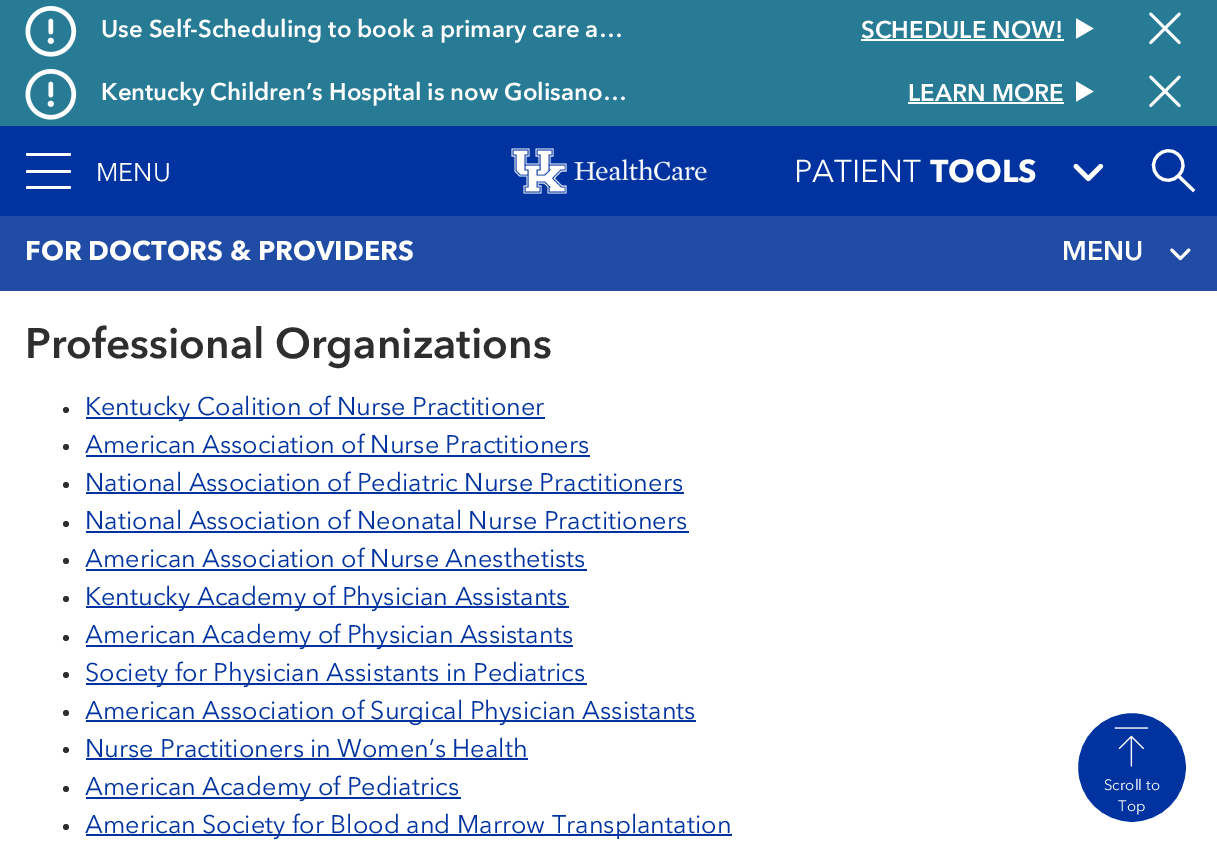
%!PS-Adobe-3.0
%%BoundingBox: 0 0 1217 853
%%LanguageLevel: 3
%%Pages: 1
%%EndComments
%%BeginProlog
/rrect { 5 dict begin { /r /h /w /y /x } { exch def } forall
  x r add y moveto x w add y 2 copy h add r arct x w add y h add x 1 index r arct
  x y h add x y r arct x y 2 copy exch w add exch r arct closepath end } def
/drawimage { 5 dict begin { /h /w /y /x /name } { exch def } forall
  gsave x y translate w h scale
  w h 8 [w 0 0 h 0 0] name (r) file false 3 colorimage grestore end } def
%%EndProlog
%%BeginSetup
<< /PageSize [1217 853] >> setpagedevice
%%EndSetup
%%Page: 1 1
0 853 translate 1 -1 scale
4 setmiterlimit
1 setgray
0 0 1217 853 rectfill
0.153 0.482 0.58 setrgbcolor
0 0 1217 126 rectfill
(images/1.raw) 25 6 52 51 drawimage
1 setgray
861 39 203 2 rectfill
gsave
1076 18 18 21 rectclip
newpath 1093.5 28.5 moveto 1075.5 39 lineto 1075.5 18 lineto closepath fill
grestore
(images/2.raw) 1149 12 32 33 drawimage
(images/1.raw) 25 69 52 51 drawimage
908 102 156 2 rectfill
gsave
1076 81 18 21 rectclip
newpath 1093.5 91.5 moveto 1075.5 102 lineto 1075.5 81 lineto closepath fill
grestore
(images/2.raw) 1149 75 32 33 drawimage
0 0.2 0.627 setrgbcolor
0 126 1217 90 rectfill
1 setgray
26 153 45 3 1.5 rrect fill
26 170 45 3 1.5 rrect fill
26 186 45 3 1.5 rrect fill
(images/3.raw) 511 148 196 46 drawimage
(images/4.raw) 1073 163 31 19 drawimage
3.1 setlinewidth
newpath 1178.5 155 moveto 1192.5 168.5 1171.5 189.5 1158 176 curveto 1144 162 1165 141.5 1178.5 155 curveto closepath stroke
2 setlinecap
newpath 1178.5 176 moveto 1193 190 lineto stroke
0.125 0.298 0.647 setrgbcolor
0 216 1217 75 rectfill
(images/5.raw) 1170 248 21 13 drawimage
0.18 setgray
newpath 66 410 3 0 360 arc closepath fill
0 0.2 0.627 setrgbcolor
86 417 459 2 rectfill
0.18 setgray
newpath 66 447 3 0 360 arc closepath fill
0 0.2 0.627 setrgbcolor
86 455 504 2 rectfill
0.18 setgray
newpath 66 485 3 0 360 arc closepath fill
0 0.2 0.627 setrgbcolor
86 492 598 2 rectfill
0.18 setgray
newpath 66 524 3 0 360 arc closepath fill
0 0.2 0.627 setrgbcolor
86 531 603 2 rectfill
0.18 setgray
newpath 66 561 3 0 360 arc closepath fill
0 0.2 0.627 setrgbcolor
86 569 501 2 rectfill
0.18 setgray
newpath 66 599 3 0 360 arc closepath fill
0 0.2 0.627 setrgbcolor
86 606 483 2 rectfill
0.18 setgray
newpath 66 638 3 0 360 arc closepath fill
0 0.2 0.627 setrgbcolor
86 645 487 2 rectfill
0.18 setgray
newpath 66 675 3 0 360 arc closepath fill
0 0.2 0.627 setrgbcolor
86 683 501 2 rectfill
0.18 setgray
newpath 66 713 3 0 360 arc closepath fill
0 0.2 0.627 setrgbcolor
86 720 610 2 rectfill
0.18 setgray
newpath 66 750 3 0 360 arc closepath fill
0 0.2 0.627 setrgbcolor
86 758 442 2 rectfill
0.18 setgray
newpath 66 789 3 0 360 arc closepath fill
0 0.2 0.627 setrgbcolor
86 797 375 2 rectfill
0.18 setgray
newpath 66 827 3 0 360 arc closepath fill
0 0.2 0.627 setrgbcolor
86 834 646 2 rectfill
1077 712 110 111 55 rrect gsave fill grestore
1 setgray
2 setlinewidth
0 setlinecap
stroke
(images/6.raw) 1114 727 35 40 drawimage
/AvenirNext-SemiBold [24 0 0 -24 0 0] selectfont
101 37 moveto (Use Self-Scheduling to book a primary care a…) show
861 38 moveto (SCHEDULE NOW!) show
101 100 moveto (Kentucky Children’s Hospital is now Golisano…) show
908 101 moveto (LEARN MORE) show
/AvenirNext-Regular [25.3 0 0 -25.3 0 0] selectfont
96 181 moveto (MENU) show
/AvenirNext-Regular [31.5 0 0 -31.5 0 0] selectfont
794 182 moveto (PATIENT) show
/AvenirNext-Bold [31.5 0 0 -31.5 0 0] selectfont
930 182 moveto (TOOLS) show
/AvenirNext-Bold [27 0 0 -27 0 0] selectfont
25 260 moveto (FOR DOCTORS & PROVIDERS) show
/AvenirNext-SemiBold [27 0 0 -27 0 0] selectfont
1062 260 moveto (MENU) show
/AvenirNext-SemiBold [42.4 0 0 -42.4 0 0] selectfont
0.18 setgray
25 358 moveto (Professional Organizations) show
/AvenirNext-Regular [25.3 0 0 -25.3 0 0] selectfont
0 0.2 0.627 setrgbcolor
85 415 moveto (Kentucky Coalition of Nurse Practitioner) show
85 453 moveto (American Association of Nurse Practitioners) show
85 491 moveto (National Association of Pediatric Nurse Practitioners) show
85 529 moveto (National Association of Neonatal Nurse Practitioners) show
85 567 moveto (American Association of Nurse Anesthetists) show
85 605 moveto (Kentucky Academy of Physician Assistants) show
85 643 moveto (American Academy of Physician Assistants) show
85 681 moveto (Society for Physician Assistants in Pediatrics) show
85 719 moveto (American Association of Surgical Physician Assistants) show
85 757 moveto (Nurse Practitioners in Women’s Health) show
85 795 moveto (American Academy of Pediatrics) show
85 833 moveto (American Society for Blood and Marrow Transplantation) show
/AvenirNext-Regular [15 0 0 -15 0 0] selectfont
1 setgray
1104 790 moveto (Scroll to) show
1118 811 moveto (Top) show
showpage
%%EOF
